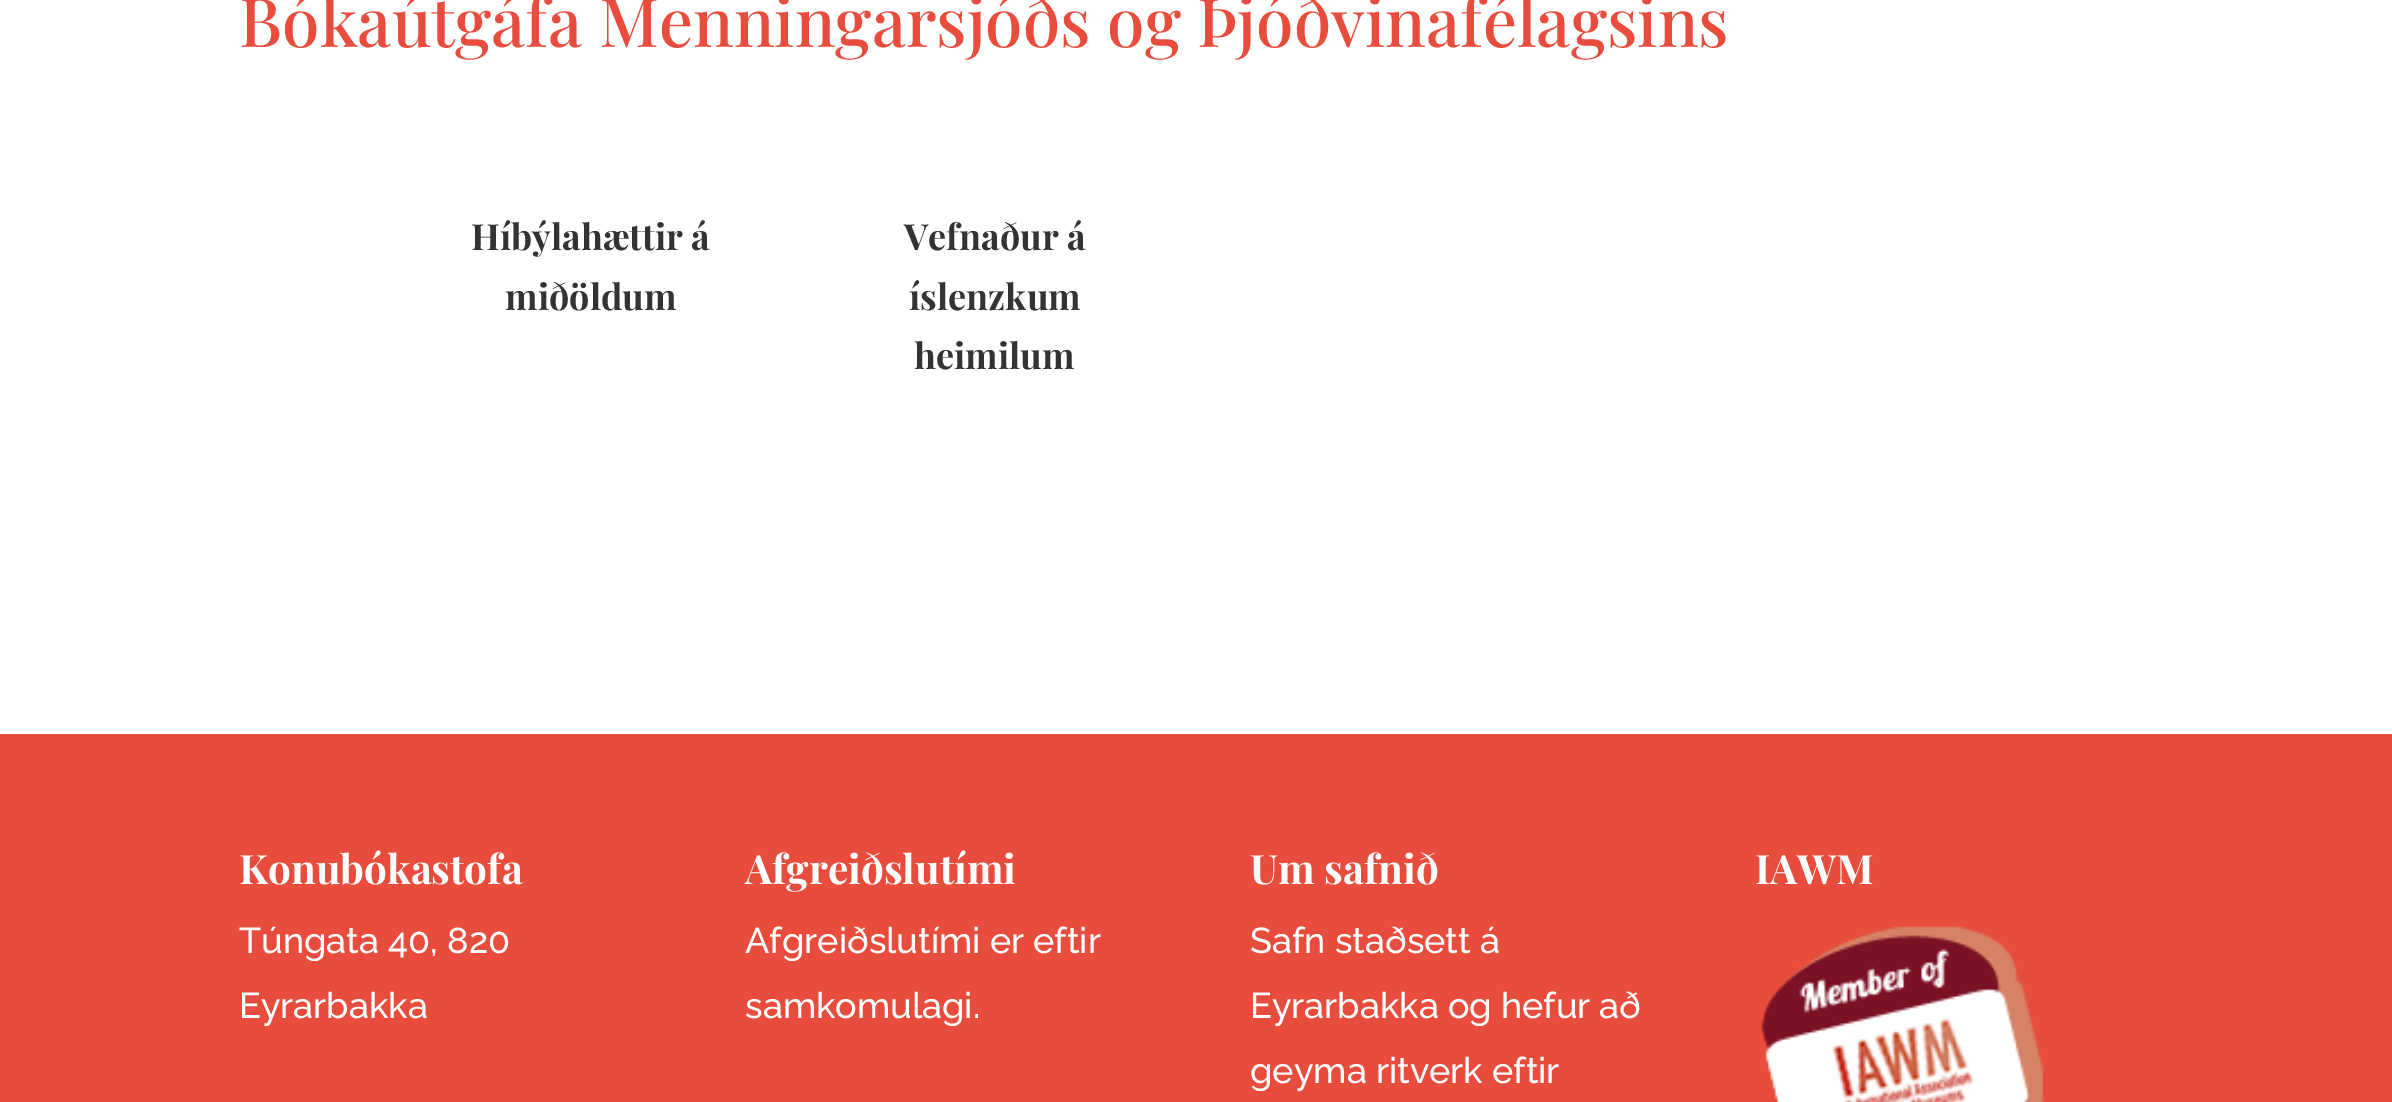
%!PS-Adobe-3.0
%%BoundingBox: 0 0 2392 1102
%%LanguageLevel: 3
%%Pages: 1
%%EndComments
%%BeginProlog
/drawimage { 5 dict begin { /h /w /y /x /name } { exch def } forall
  gsave x y translate w h scale
  w h 8 [w 0 0 h 0 0] name (r) file false 3 colorimage grestore end } def
%%EndProlog
%%BeginSetup
<< /PageSize [2392 1102] >> setpagedevice
%%EndSetup
%%Page: 1 1
0 1102 translate 1 -1 scale
4 setmiterlimit
1 setgray
0 0 2392 1102 rectfill
0.906 0.298 0.235 setrgbcolor
0 734 2392 368 rectfill
(images/1.raw) 1761 926 283 176 drawimage
/PlayfairDisplay-Medium [67.5 0 0 -67.5 0 0] selectfont
239 47 moveto (Bókaútgáfa Menningarsjóðs og Þjóðvinafélagsins) show
/PlayfairDisplay-Bold [36 0 0 -36 0 0] selectfont
0.2 setgray
471 250 moveto (Híbýlahættir á) show
505 310 moveto (miðöldum) show
904 250 moveto (Vefnaður á) show
909 310 moveto (íslenzkum) show
914 369 moveto (heimilum) show
/PlayfairDisplay-Bold [40.5 0 0 -40.5 0 0] selectfont
1 setgray
239 884 moveto (Konubókastofa) show
/Raleway-Thin [36 0 0 -36 0 0] selectfont
239 953 moveto (Túngata 40, 820) show
239 1018 moveto (Eyrarbakka) show
/PlayfairDisplay-Bold [40.5 0 0 -40.5 0 0] selectfont
745 884 moveto (Afgreiðslutími) show
/Raleway-Thin [36 0 0 -36 0 0] selectfont
745 953 moveto (Afgreiðslutími er eftir) show
745 1018 moveto (samkomulagi.) show
/PlayfairDisplay-Bold [40.5 0 0 -40.5 0 0] selectfont
1250 884 moveto (Um safnið) show
/Raleway-Thin [36 0 0 -36 0 0] selectfont
1250 953 moveto (Safn staðsett á) show
1250 1018 moveto (Eyrarbakka og hefur að) show
1250 1083 moveto (geyma ritverk eftir) show
/PlayfairDisplay-Bold [40.5 0 0 -40.5 0 0] selectfont
1755 884 moveto (IAWM) show
showpage
%%EOF
